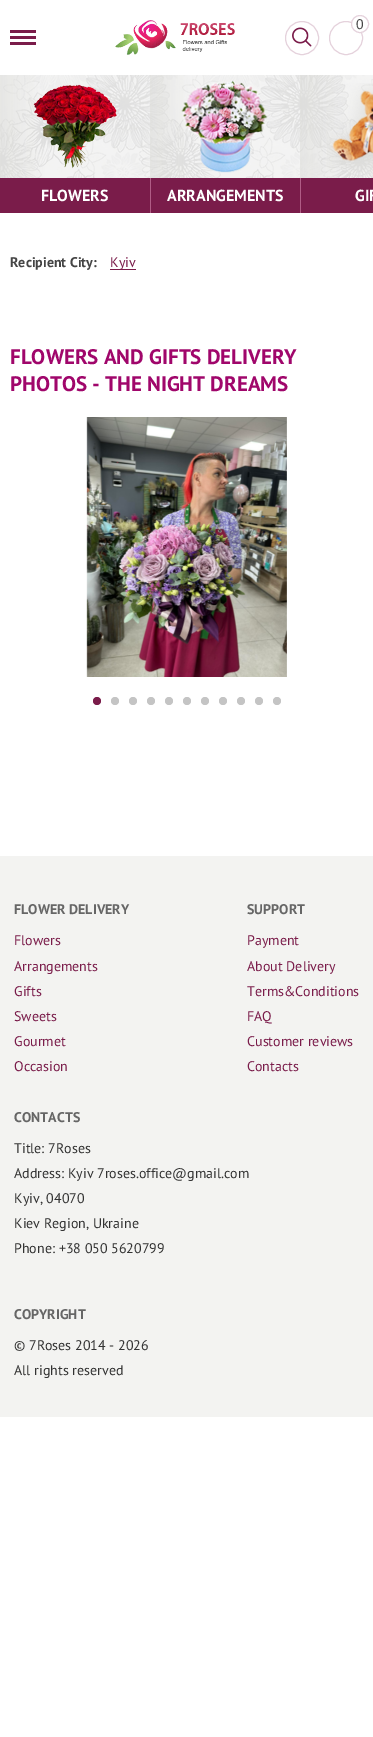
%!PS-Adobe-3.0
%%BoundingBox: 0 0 373 1737
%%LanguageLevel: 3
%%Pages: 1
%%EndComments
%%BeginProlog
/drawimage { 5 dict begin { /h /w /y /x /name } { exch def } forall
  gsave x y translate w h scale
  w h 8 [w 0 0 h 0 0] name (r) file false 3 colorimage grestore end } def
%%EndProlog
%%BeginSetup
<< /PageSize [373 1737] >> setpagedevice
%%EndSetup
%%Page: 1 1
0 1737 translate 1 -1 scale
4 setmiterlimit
1 setgray
0 0 373 1737 rectfill
0.478 0.11 0.29 setrgbcolor
10 30 26 3 rectfill
10 36 26 3 rectfill
10 42 26 3 rectfill
(images/1.raw) 115 20 120 35 drawimage
0.898 0.824 0.863 setrgbcolor
newpath 302 38 16.5 0 360 arc closepath stroke
(images/2.raw) 292 27 20 20 drawimage
newpath 346 38 16.5 0 360 arc closepath stroke
1 setgray
newpath 360 24 8.5 0 360 arc closepath gsave fill grestore
0.898 0.824 0.863 setrgbcolor
stroke
(images/3.raw) 0 75 373 103 drawimage
(images/4.raw) 33 84 84 85 drawimage
0.478 0.11 0.29 setrgbcolor
0 178 150 35 rectfill
(images/5.raw) 181 80 87 93 drawimage
151 178 149 35 rectfill
0.69 0.361 0.522 setrgbcolor
150 178 1 35 rectfill
(images/6.raw) 327 83 46 94 drawimage
0.478 0.11 0.29 setrgbcolor
301 178 72 35 rectfill
0.69 0.361 0.522 setrgbcolor
300 178 1 35 rectfill
0.478 0.11 0.29 setrgbcolor
110 269 26 1 rectfill
(images/7.raw) 86 417 201 260 drawimage
newpath 97 701 4 0 360 arc closepath fill
0.769 setgray
newpath 115 701 4 0 360 arc closepath fill
newpath 133 701 4 0 360 arc closepath fill
newpath 151 701 4 0 360 arc closepath fill
newpath 169 701 4 0 360 arc closepath fill
newpath 187 701 4 0 360 arc closepath fill
newpath 205 701 4 0 360 arc closepath fill
newpath 223 701 4 0 360 arc closepath fill
newpath 241 701 4 0 360 arc closepath fill
newpath 259 701 4 0 360 arc closepath fill
newpath 277 701 4 0 360 arc closepath fill
0.953 0.953 0.945 setrgbcolor
0 856 373 561 rectfill
/PTSans-Regular [14 0 0 -14 0 0] selectfont
0.271 setgray
356 29 moveto (0) show
/PTSans-Bold [16 0 0 -16 0 0] selectfont
1 setgray
41 201 moveto (FLOWERS) show
167 201 moveto (ARRANGEMENTS) show
355 201 moveto (GIF) show
/PTSans-Bold [14 0 0 -14 0 0] selectfont
0.271 setgray
10 267 moveto (Recipient City:) show
/PTSans-Regular [14 0 0 -14 0 0] selectfont
0.478 0.11 0.29 setrgbcolor
110 267 moveto (Kyiv) show
/PTSans-Bold [21 0 0 -21 0 0] selectfont
0.627 0.024 0.42 setrgbcolor
10 364 moveto (FLOWERS AND GIFTS DELIVERY) show
10 391 moveto (PHOTOS - THE NIGHT DREAMS) show
/PTSans-Bold [14 0 0 -14 0 0] selectfont
0.4 setgray
14 914 moveto (FLOWER DELIVERY) show
/PTSans-Regular [14 0 0 -14 0 0] selectfont
0.478 0.11 0.29 setrgbcolor
14 945 moveto (Flowers) show
14 971 moveto (Arrangements) show
14 996 moveto (Gifts) show
14 1021 moveto (Sweets) show
14 1046 moveto (Gourmet) show
14 1071 moveto (Occasion) show
/PTSans-Bold [14 0 0 -14 0 0] selectfont
0.4 setgray
247 914 moveto (SUPPORT) show
/PTSans-Regular [14 0 0 -14 0 0] selectfont
0.478 0.11 0.29 setrgbcolor
247 945 moveto (Payment) show
247 971 moveto (About Delivery) show
247 996 moveto (Terms&Conditions) show
247 1021 moveto (FAQ) show
247 1046 moveto (Customer reviews) show
247 1071 moveto (Contacts) show
/PTSans-Bold [14 0 0 -14 0 0] selectfont
0.4 setgray
14 1122 moveto (CONTACTS) show
/PTSans-Regular [14 0 0 -14 0 0] selectfont
0.2 setgray
14 1153 moveto (Title: 7Roses) show
14 1178 moveto (Address: Kyiv 7roses.office@gmail.com) show
14 1203 moveto (Kyiv, 04070) show
14 1228 moveto (Kiev Region, Ukraine) show
14 1253 moveto (Phone: +38 050 5620799) show
/PTSans-Bold [14 0 0 -14 0 0] selectfont
0.4 setgray
14 1319 moveto (COPYRIGHT) show
/PTSans-Regular [14 0 0 -14 0 0] selectfont
0.2 setgray
14 1350 moveto (© 7Roses 2014 - 2026) show
14 1375 moveto (All rights reserved) show
showpage
%%EOF
